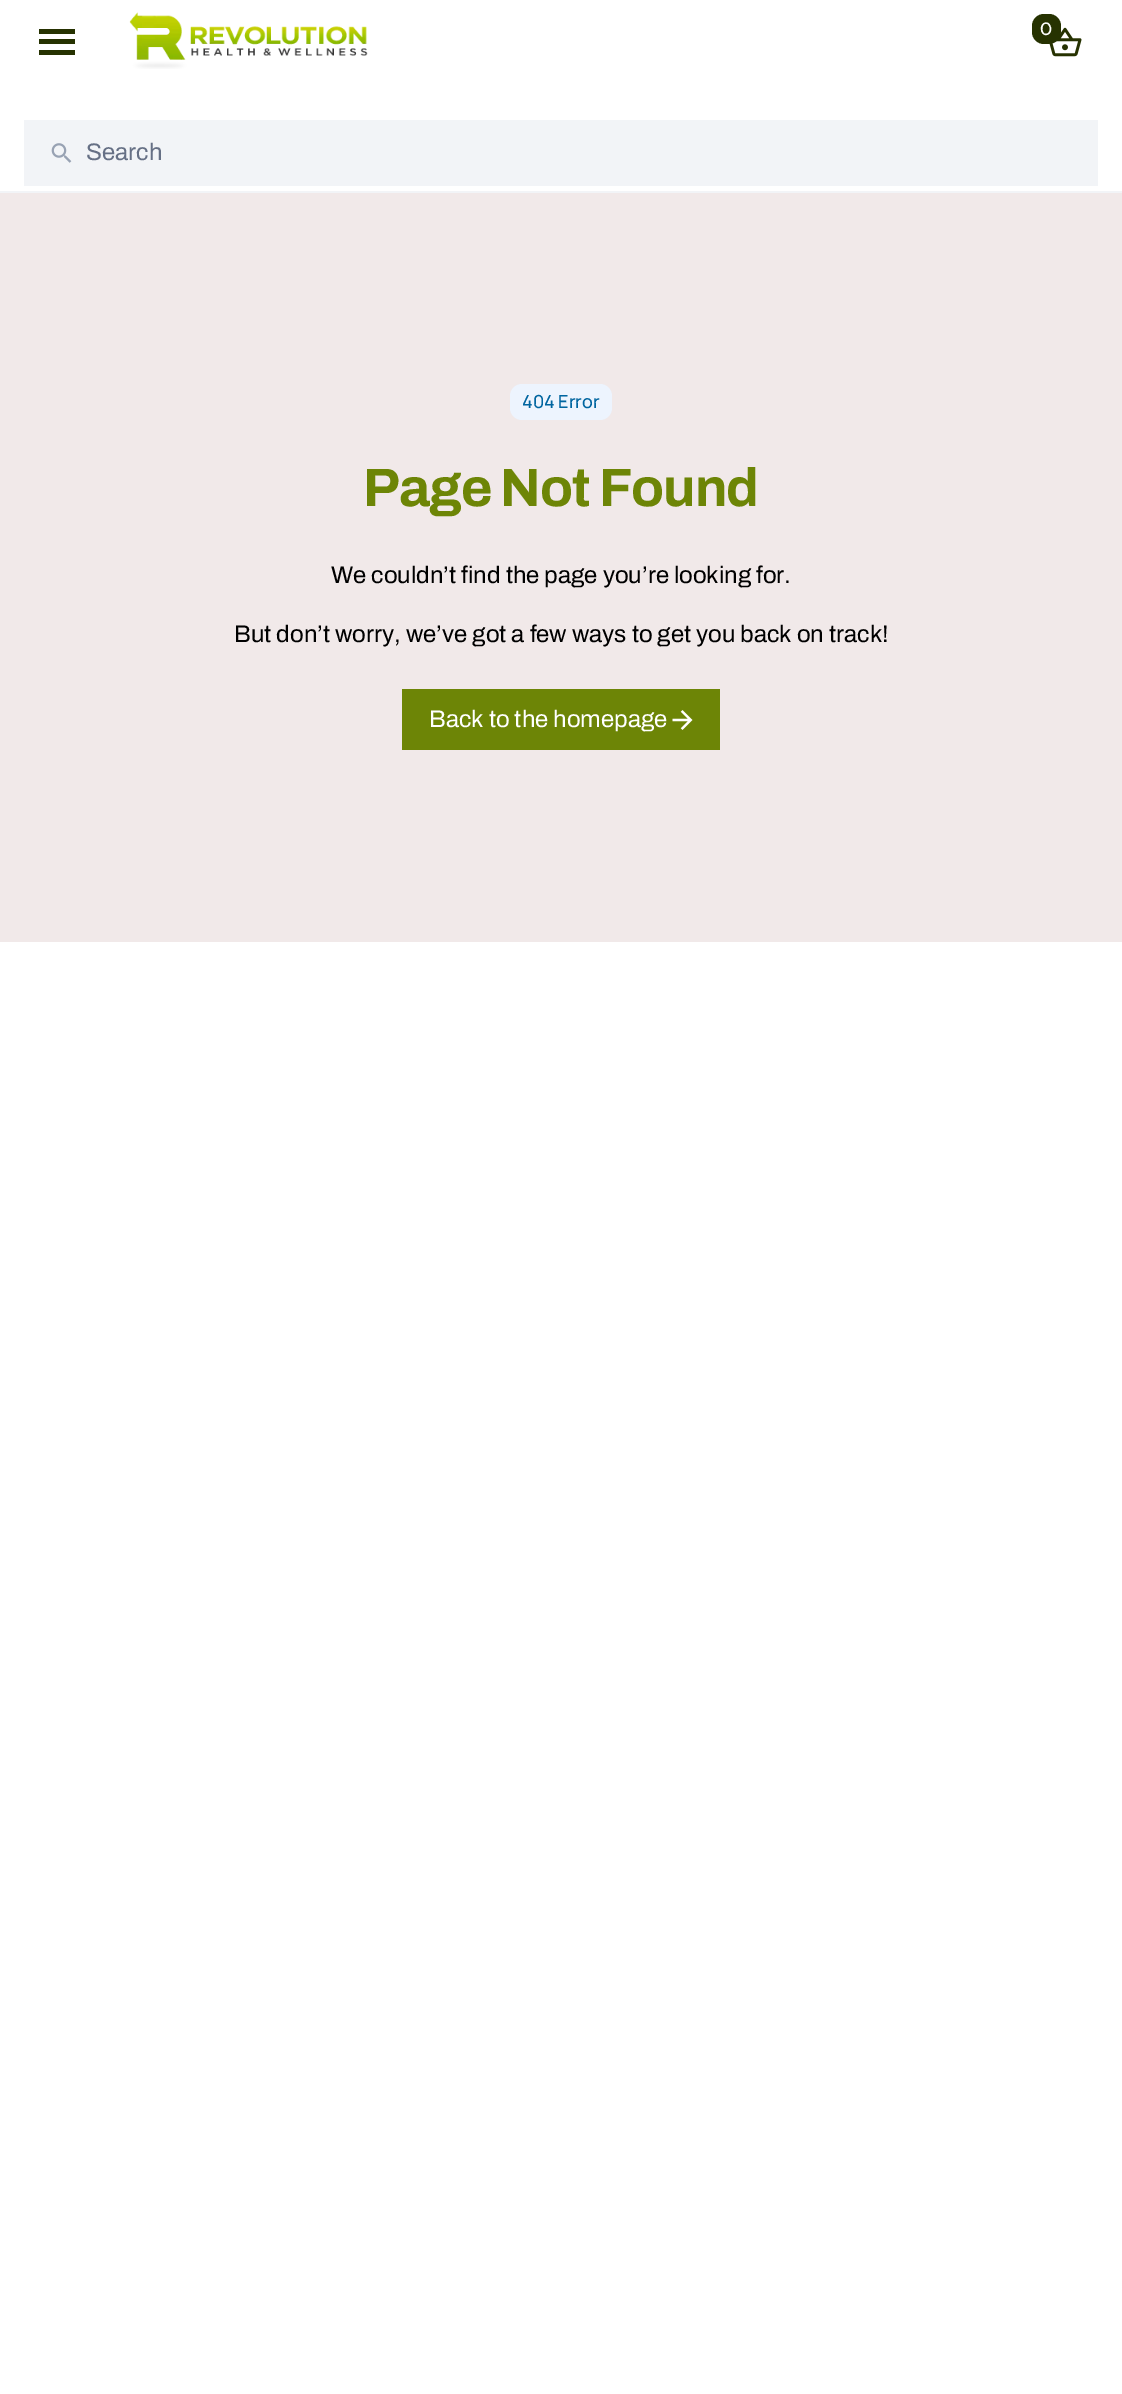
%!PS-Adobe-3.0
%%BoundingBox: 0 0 1122 2394
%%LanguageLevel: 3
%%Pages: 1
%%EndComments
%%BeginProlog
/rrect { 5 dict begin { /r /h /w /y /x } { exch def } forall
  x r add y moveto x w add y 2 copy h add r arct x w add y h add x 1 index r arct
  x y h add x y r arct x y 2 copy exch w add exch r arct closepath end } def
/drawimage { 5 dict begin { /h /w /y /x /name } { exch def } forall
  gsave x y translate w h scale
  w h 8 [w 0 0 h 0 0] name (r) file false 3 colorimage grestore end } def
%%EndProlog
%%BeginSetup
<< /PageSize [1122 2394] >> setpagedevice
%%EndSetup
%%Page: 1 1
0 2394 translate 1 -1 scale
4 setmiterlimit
1 setgray
0 0 1122 2394 rectfill
0.149 0.196 0.004 setrgbcolor
39 29 36 5 rectfill
39 39 36 5 rectfill
39 50 36 5 rectfill
(images/1.raw) 129 12 239 57 drawimage
1032 14 29 30 12 rrect fill
0.949 0.957 0.969 setrgbcolor
24 120 1074 66 rectfill
(images/3.raw) 51 143 21 20 drawimage
0 191 1122 2 rectfill
0.945 0.914 0.914 setrgbcolor
0 193 1122 749 rectfill
0.929 0.957 0.996 setrgbcolor
510 384 102 36 12 rrect fill
0.427 0.522 0.024 setrgbcolor
402 689 318 61 rectfill
(images/4.raw) 672 710 21 20 drawimage
/Montserrat-Medium [18 0 0 -18 0 0] selectfont
1 setgray
1040 35 moveto (0) show
(images/2.raw) 1049 27 33 30 drawimage
/Archivo-Regular [24 0 0 -24 0 0] selectfont
0.4 0.439 0.522 setrgbcolor
86 160 moveto (Search) show
/Manrope-Medium [18 0 0 -18 0 0] selectfont
0 0.396 0.627 setrgbcolor
522 408 moveto (404 Error) show
/Archivo-Bold [54 0 0 -54 0 0] selectfont
0.427 0.522 0.024 setrgbcolor
363 506 moveto -1.1 0 (Page Not Found) ashow
/Archivo-Regular [24 0 0 -24 0 0] selectfont
0 setgray
331 583 moveto (We couldn’t find the page you’re looking for.) show
234 642 moveto (But don’t worry, we’ve got a few ways to get you back on track!) show
1 setgray
429 727 moveto (Back to the homepage) show
showpage
%%EOF
